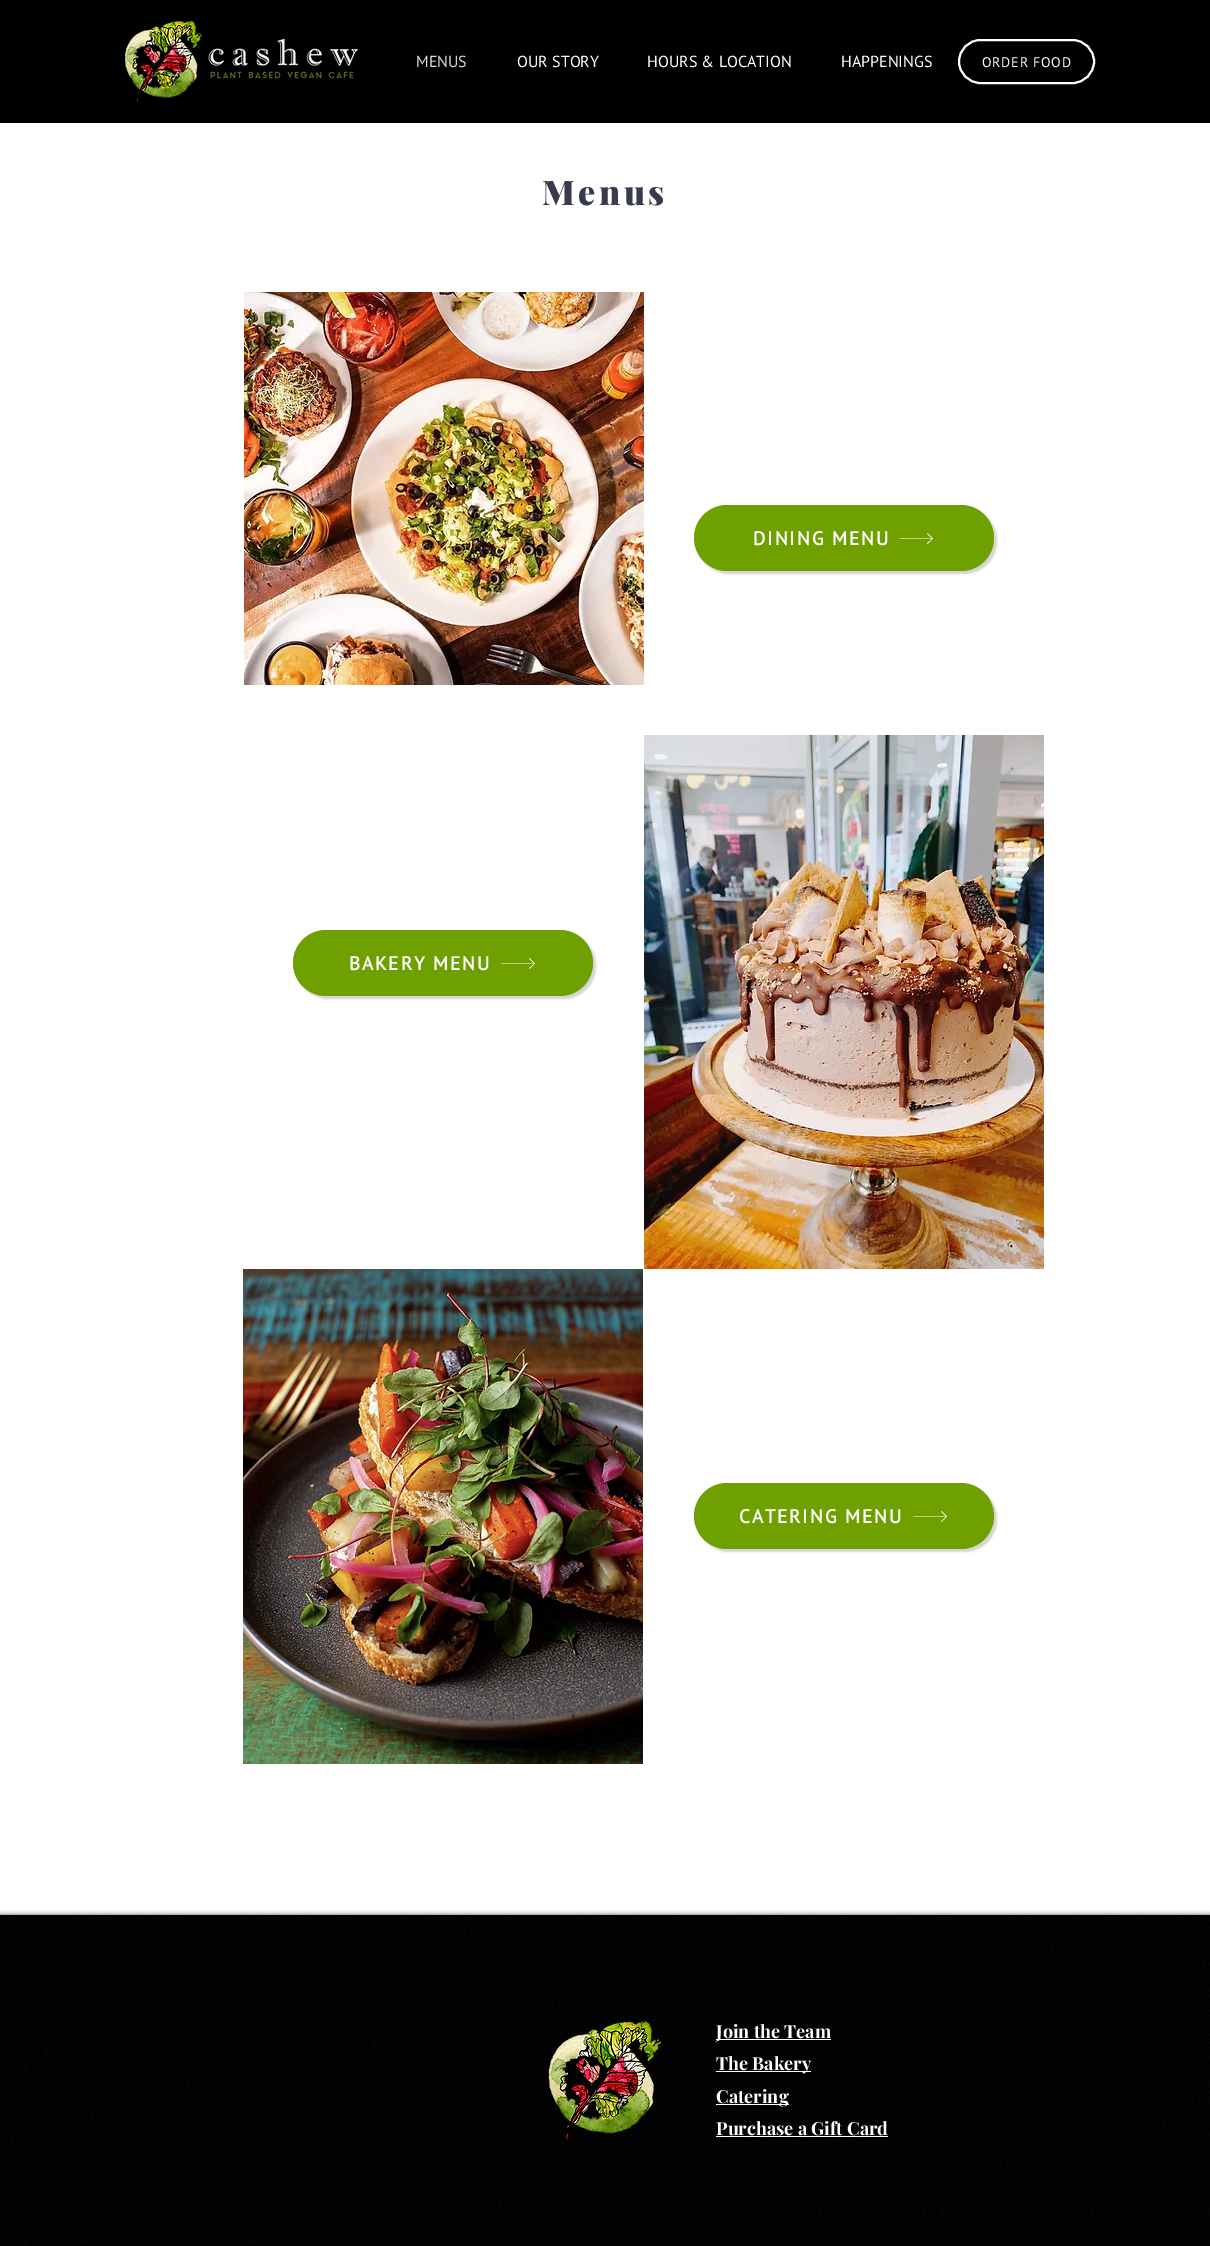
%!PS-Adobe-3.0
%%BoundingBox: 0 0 1210 2246
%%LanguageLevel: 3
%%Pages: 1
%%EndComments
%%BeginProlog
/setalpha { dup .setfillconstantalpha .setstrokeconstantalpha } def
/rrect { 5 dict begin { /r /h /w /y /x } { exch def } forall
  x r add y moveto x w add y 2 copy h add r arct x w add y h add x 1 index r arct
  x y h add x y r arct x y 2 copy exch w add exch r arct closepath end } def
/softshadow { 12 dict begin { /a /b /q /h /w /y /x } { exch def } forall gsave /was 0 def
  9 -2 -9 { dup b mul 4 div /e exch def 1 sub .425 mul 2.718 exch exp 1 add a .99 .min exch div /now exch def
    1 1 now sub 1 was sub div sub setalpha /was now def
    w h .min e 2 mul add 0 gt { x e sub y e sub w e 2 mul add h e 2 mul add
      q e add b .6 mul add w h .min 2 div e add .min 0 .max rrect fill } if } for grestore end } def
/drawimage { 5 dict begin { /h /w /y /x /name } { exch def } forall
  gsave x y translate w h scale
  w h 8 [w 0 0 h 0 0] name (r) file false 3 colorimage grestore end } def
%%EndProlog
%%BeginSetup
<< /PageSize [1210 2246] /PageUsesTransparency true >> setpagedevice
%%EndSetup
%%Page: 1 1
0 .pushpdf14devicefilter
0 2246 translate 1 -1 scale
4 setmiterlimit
0 setgray
0 0 1210 2246 rectfill
(images/1.raw) 124 20 234 82 drawimage
1 setgray
2 setlinewidth
959 40 135 43 21.5 rrect stroke
0 123 1210 1792 rectfill
(images/2.raw) 244 292 400 393 drawimage
0 setgray
697 508 300 66 33 1 0.17 softshadow
0.431 0.627 0 setrgbcolor
694 505 300 66 33 rrect fill
1 setgray
newpath 927.5 533 moveto 927 533.5 lineto 932 538.5 lineto 899.5 538.5 lineto 899.5 539 lineto 932 539 lineto 927 543.5 lineto 927.5 544 lineto 933 538.5 lineto closepath fill
0 setgray
296 933 300 66 33 1 0.17 softshadow
0.431 0.627 0 setrgbcolor
293 930 300 66 33 rrect fill
1 setgray
newpath 529.5 958 moveto 529 958.5 lineto 534 963.5 lineto 501.5 963.5 lineto 501.5 964 lineto 534 964 lineto 529 968.5 lineto 529.5 969 lineto 535 963.5 lineto closepath fill
(images/3.raw) 644 735 400 534 drawimage
(images/4.raw) 243 1269 400 495 drawimage
0 setgray
697 1486 300 66 33 1 0.17 softshadow
0.431 0.627 0 setrgbcolor
694 1483 300 66 33 rrect fill
1 setgray
newpath 941.5 1511 moveto 941 1511.5 lineto 946 1516.5 lineto 913.5 1516.5 lineto 913.5 1517 lineto 946 1517 lineto 941 1521.5 lineto 941.5 1522 lineto 947 1516.5 lineto closepath fill
gsave
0 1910 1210 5 rectclip
0 setgray
0 1915 1210 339 0 2.5 0.7 softshadow
grestore
(images/5.raw) 0 1915 1210 331 drawimage
(images/6.raw) 548 2021 113 118 drawimage
716 2039 115 1 rectfill
716 2071 95 1 rectfill
716 2104 73 1 rectfill
716 2136 172 1 rectfill
/PTSans-Regular [16 0 0 -16 0 0] selectfont
0.82 0.851 0.863 setrgbcolor
416 67 moveto (MENUS) show
1 setgray
517 67 moveto (OUR STORY) show
647 67 moveto (HOURS & LOCATION) show
841 67 moveto (HAPPENINGS) show
/PTSans-Regular [14 0 0 -14 0 0] selectfont
982 67 moveto 0.75 0 (ORDER FOOD) ashow
/PlayfairDisplay-Black [34 0 0 -34 0 0] selectfont
0.216 0.231 0.302 setrgbcolor
542 205 moveto 3.5 0 (Menus) ashow
/PTSans-Bold [19 0 0 -19 0 0] selectfont
1 setgray
753 545 moveto 1.9 0 (DINING MENU) ashow
349 970 moveto 1.9 0 (BAKERY MENU) ashow
739 1523 moveto 1.9 0 (CATERING MENU) ashow
/PlayfairDisplay-Bold [18 0 0 -18 0 0] selectfont
716 2038 moveto (Join the Team) show
716 2070 moveto (The Bakery) show
716 2103 moveto (Catering) show
716 2135 moveto (Purchase a Gift Card) show
.poppdf14devicefilter showpage
%%EOF
